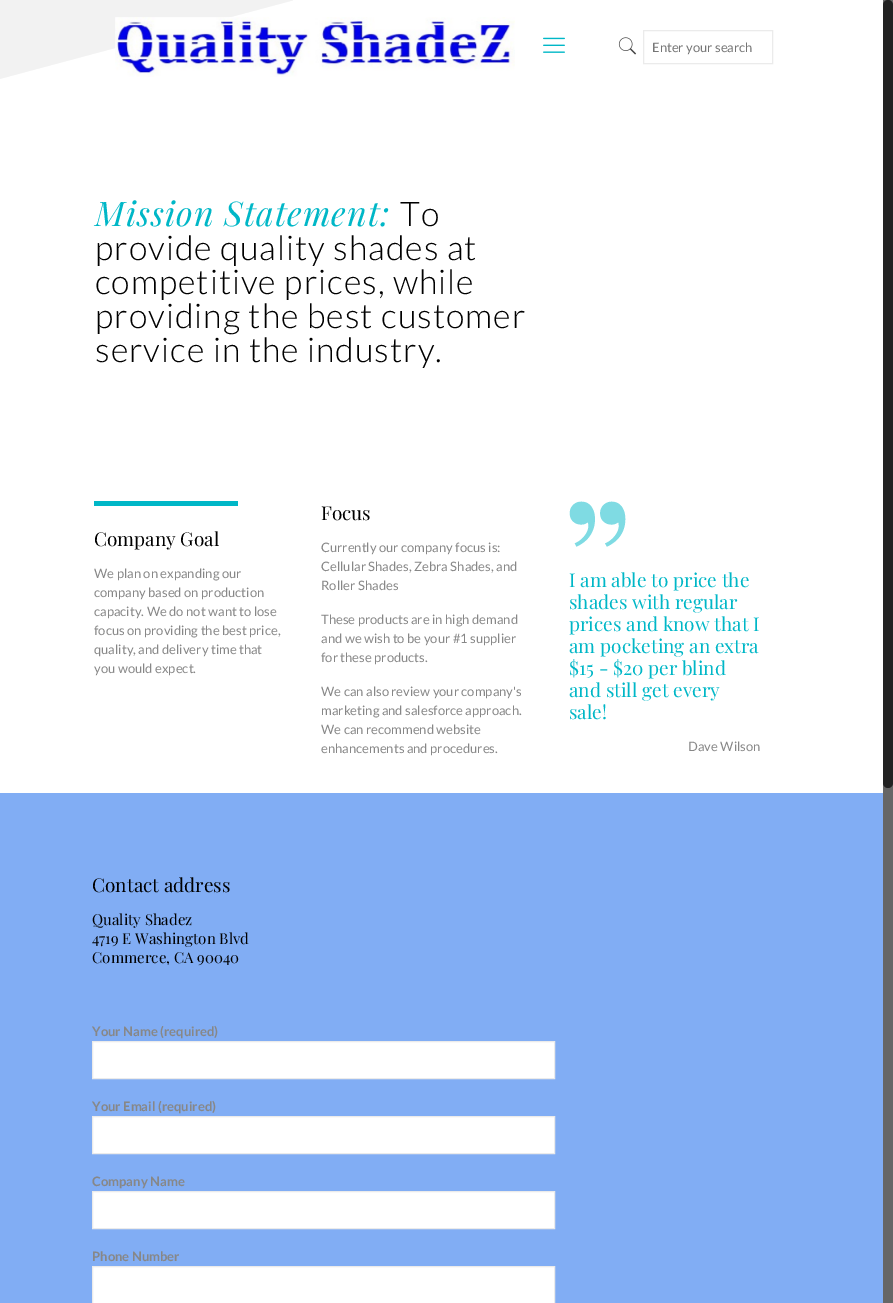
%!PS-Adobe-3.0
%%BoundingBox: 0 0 893 1303
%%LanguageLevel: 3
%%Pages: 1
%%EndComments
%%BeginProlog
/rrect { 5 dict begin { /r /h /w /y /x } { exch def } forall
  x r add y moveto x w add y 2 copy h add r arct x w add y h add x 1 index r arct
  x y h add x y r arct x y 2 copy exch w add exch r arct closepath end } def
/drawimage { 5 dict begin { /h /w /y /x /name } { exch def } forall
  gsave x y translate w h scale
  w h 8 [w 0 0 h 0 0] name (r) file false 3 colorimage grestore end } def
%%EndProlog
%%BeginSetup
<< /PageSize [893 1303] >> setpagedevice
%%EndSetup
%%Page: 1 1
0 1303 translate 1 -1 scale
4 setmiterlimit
1 setgray
0 0 893 1303 rectfill
(images/1.raw) 0 0 293 79 drawimage
(images/2.raw) 115 17 400 60 drawimage
(images/3.raw) 543 37 22 16 drawimage
(images/4.raw) 618 37 19 18 drawimage
0.922 setgray
643.5 30.5 129 33 rectstroke
0 0.718 0.78 setrgbcolor
94 501 144 5 rectfill
(images/5.raw) 569 501 57 46 drawimage
0.506 0.678 0.957 setrgbcolor
0 793 883 510 rectfill
1 setgray
newpath 92.5 1041.5 moveto 554.5 1041.5 lineto 554.5 1078.5 lineto 92.5 1078.5 lineto closepath gsave fill grestore
0.922 setgray
stroke
1 setgray
newpath 92.5 1116.5 moveto 554.5 1116.5 lineto 554.5 1153.5 lineto 92.5 1153.5 lineto closepath gsave fill grestore
0.922 setgray
stroke
1 setgray
newpath 92.5 1191.5 moveto 554.5 1191.5 lineto 554.5 1228.5 lineto 92.5 1228.5 lineto closepath gsave fill grestore
0.922 setgray
stroke
1 setgray
newpath 92.5 1266.5 moveto 554.5 1266.5 lineto 554.5 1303.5 lineto 92.5 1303.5 lineto closepath gsave fill grestore
0.922 setgray
stroke
0.4 setgray
883 0 10 1303 rectfill
0.133 setgray
883 0 10 788 5 rrect fill
/Lato-Regular [13 0 0 -13 0 0] selectfont
0.459 setgray
652 52 moveto (Enter your search) show
/PlayfairDisplay-Italic [34 0 0 -34 0 0] selectfont
0 0.718 0.78 setrgbcolor
95 226 moveto 1 0 (Mission Statement:) ashow
/Lato-Light [34 0 0 -34 0 0] selectfont
0 setgray
400 226 moveto 1 0 (To) ashow
95 260 moveto 1 0 (provide quality shades at) ashow
95 294 moveto 1 0 (competitive prices, while) ashow
95 328 moveto 1 0 (providing the best customer) ashow
95 362 moveto 1 0 (service in the industry.) ashow
/PlayfairDisplay-Regular [19 0 0 -19 0 0] selectfont
94 546 moveto (Company Goal) show
/Lato-Regular [13 0 0 -13 0 0] selectfont
0.529 setgray
94 578 moveto (We plan on expanding our) show
94 597 moveto (company based on production) show
94 616 moveto (capacity. We do not want to lose) show
94 635 moveto (focus on providing the best price,) show
94 654 moveto (quality, and delivery time that) show
94 673 moveto (you would expect.) show
/PlayfairDisplay-Regular [19 0 0 -19 0 0] selectfont
0 setgray
321 520 moveto (Focus) show
/Lato-Regular [13 0 0 -13 0 0] selectfont
0.529 setgray
321 552 moveto (Currently our company focus is:) show
321 571 moveto (Cellular Shades, Zebra Shades, and) show
321 590 moveto (Roller Shades) show
321 624 moveto (These products are in high demand) show
321 643 moveto (and we wish to be your #1 supplier) show
321 662 moveto (for these products.) show
321 696 moveto (We can also review your company's) show
321 715 moveto (marketing and salesforce approach.) show
321 734 moveto (We can recommend website) show
321 753 moveto (enhancements and procedures.) show
/PlayfairDisplay-Regular [19 0 0 -19 0 0] selectfont
0 0.718 0.78 setrgbcolor
569 587 moveto (I am able to price the) show
569 609 moveto (shades with regular) show
569 631 moveto (prices and know that I) show
569 653 moveto (am pocketing an extra) show
569 675 moveto ($15 - $20 per blind) show
569 697 moveto (and still get every) show
569 719 moveto (sale!) show
/Lato-Regular [13 0 0 -13 0 0] selectfont
0.529 setgray
688 751 moveto (Dave Wilson) show
/PlayfairDisplay-Regular [19 0 0 -19 0 0] selectfont
0 setgray
92 892 moveto (Contact address) show
/PlayfairDisplay-Regular [15 0 0 -15 0 0] selectfont
92 925 moveto (Quality Shadez) show
92 944 moveto (4719 E Washington Blvd) show
92 963 moveto (Commerce, CA 90040) show
/Lato-Bold [13 0 0 -13 0 0] selectfont
0.529 setgray
92 1036 moveto (Your Name \(required\)) show
92 1111 moveto (Your Email \(required\)) show
92 1186 moveto (Company Name) show
92 1261 moveto (Phone Number) show
showpage
%%EOF
